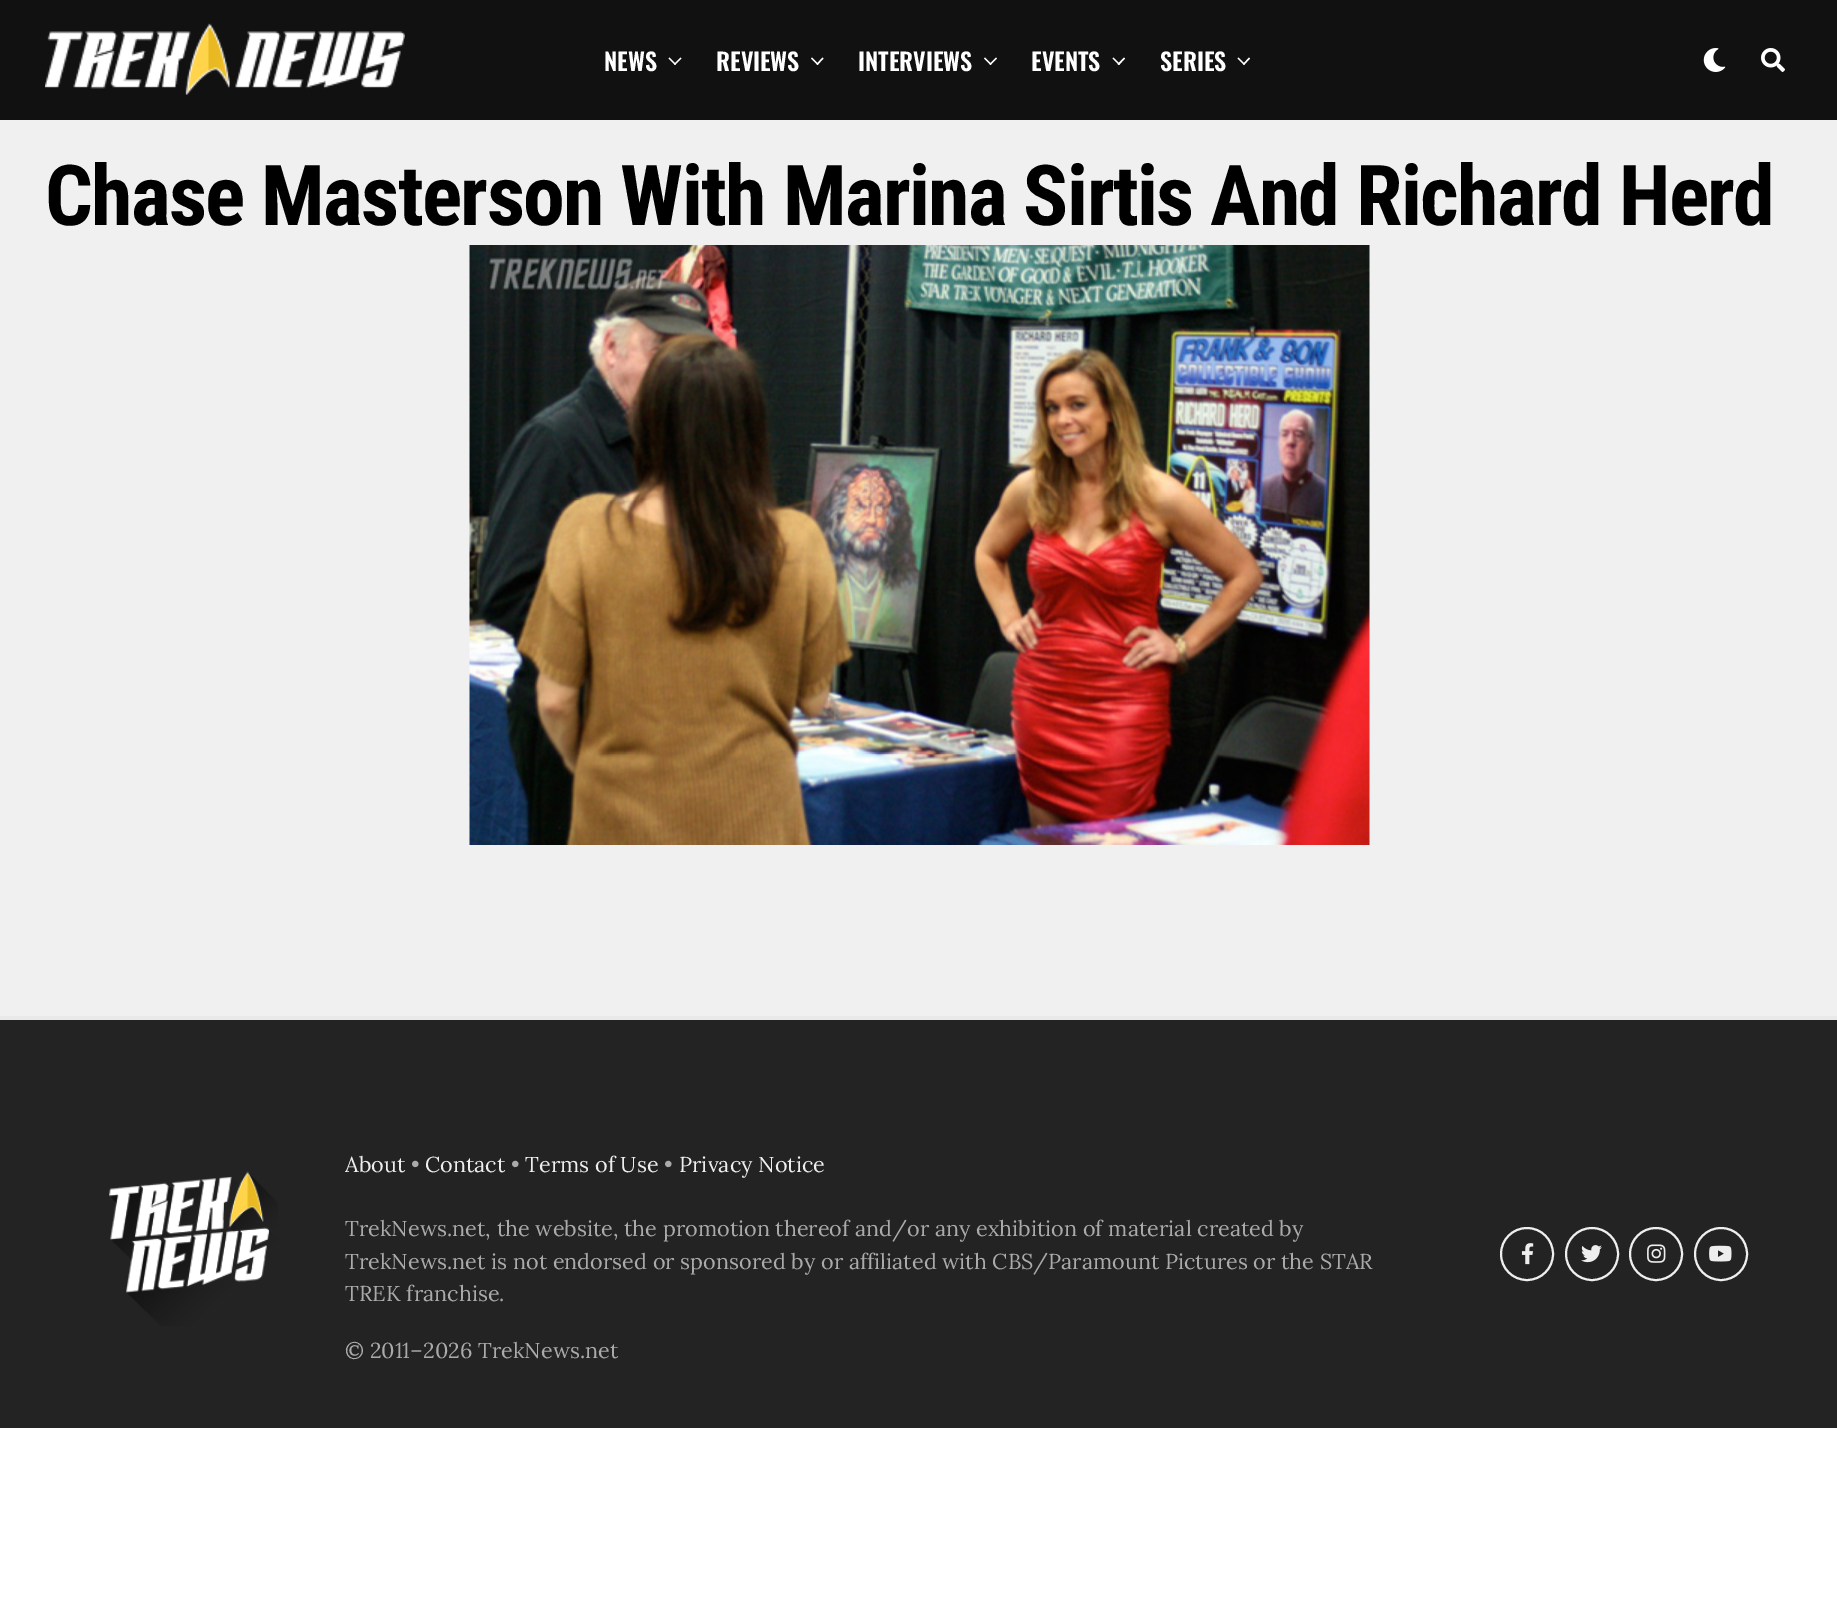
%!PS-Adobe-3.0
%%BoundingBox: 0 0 1837 1611
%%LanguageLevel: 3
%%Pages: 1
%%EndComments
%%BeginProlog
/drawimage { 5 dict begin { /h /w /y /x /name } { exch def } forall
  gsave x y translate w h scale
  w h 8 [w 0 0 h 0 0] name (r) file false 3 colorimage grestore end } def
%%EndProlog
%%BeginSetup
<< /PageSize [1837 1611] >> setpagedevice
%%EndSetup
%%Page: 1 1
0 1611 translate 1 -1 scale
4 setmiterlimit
1 setgray
0 0 1837 1611 rectfill
0.067 setgray
0 0 1837 120 rectfill
(images/1.raw) 45 23 360 72 drawimage
1 setgray
newpath 680.5 57.5 moveto 681.5 58.5 lineto 675 65 lineto 674 64 lineto closepath fill
newpath 669.5 57.5 moveto 676 64 lineto 675 65 lineto 668.5 58.5 lineto closepath fill
newpath 822.5 57.5 moveto 823.5 58.5 lineto 817.5 65 lineto 816.5 64 lineto closepath fill
newpath 812 57.5 moveto 818.5 64 lineto 817.5 65 lineto 811 58.5 lineto closepath fill
newpath 996 57.5 moveto 997 58.5 lineto 990.5 65 lineto 989.5 64 lineto closepath fill
newpath 985 57.5 moveto 991.5 64 lineto 990.5 65 lineto 984 58.5 lineto closepath fill
newpath 1124 57.5 moveto 1125 58.5 lineto 1119 65 lineto 1117.5 64 lineto closepath fill
newpath 1113.5 57.5 moveto 1120 64 lineto 1119 65 lineto 1112.5 58.5 lineto closepath fill
newpath 1249 57.5 moveto 1250 58.5 lineto 1244 65 lineto 1243 64 lineto closepath fill
newpath 1238.5 57.5 moveto 1245 64 lineto 1244 65 lineto 1237.5 58.5 lineto closepath fill
(images/2.raw) 1703 48 23 24 drawimage
(images/3.raw) 1761 48 24 24 drawimage
0.941 setgray
0 120 1837 896 rectfill
0.914 setgray
0 1016 1837 4 rectfill
(images/4.raw) 469 245 901 600 drawimage
0.137 setgray
0 1021 1837 407 rectfill
0.133 setgray
0 1020 1837 1 rectfill
(images/5.raw) 109 1171 169 155 drawimage
0.933 setgray
2 setlinewidth
newpath 1527 1254 26 0 360 arc closepath stroke
(images/6.raw) 1521 1243 13 22 drawimage
newpath 1592 1254 26 0 360 arc closepath stroke
(images/7.raw) 1581 1245 21 18 drawimage
newpath 1656 1254 26 0 360 arc closepath stroke
(images/8.raw) 1647 1244 19 19 drawimage
newpath 1721 1254 26 0 360 arc closepath stroke
(images/9.raw) 1709 1245 23 17 drawimage
/Oswald-SemiBold [24 0 0 -24 0 0] selectfont
1 setgray
604 71 moveto (NEWS) show
716 71 moveto (REVIEWS) show
858 71 moveto (INTERVIEWS) show
1031 71 moveto (EVENTS) show
1160 71 moveto (SERIES) show
/RobotoCondensed-Bold [84 0 0 -84 0 0] selectfont
0 setgray
45 225 moveto -1.68 0 (Chase Masterson With Marina Sirtis And Richard Herd) ashow
/Lora-Regular [21.6 0 0 -21.6 0 0] selectfont
0.933 setgray
345 1172 moveto (About) show
0.667 setgray
411 1172 moveto (•) show
0.933 setgray
425 1172 moveto (Contact) show
0.667 setgray
511 1172 moveto (•) show
0.933 setgray
525 1172 moveto (Terms of Use) show
0.667 setgray
664 1172 moveto (•) show
0.933 setgray
679 1172 moveto (Privacy Notice) show
0.667 setgray
345 1236 moveto (TrekNews.net, the website, the promotion thereof and/or any exhibition of material created by) show
345 1269 moveto (TrekNews.net is not endorsed or sponsored by or affiliated with CBS/Paramount Pictures or the STAR) show
345 1301 moveto (TREK franchise.) show
345 1358 moveto (© 2011–2026 TrekNews.net) show
showpage
%%EOF
